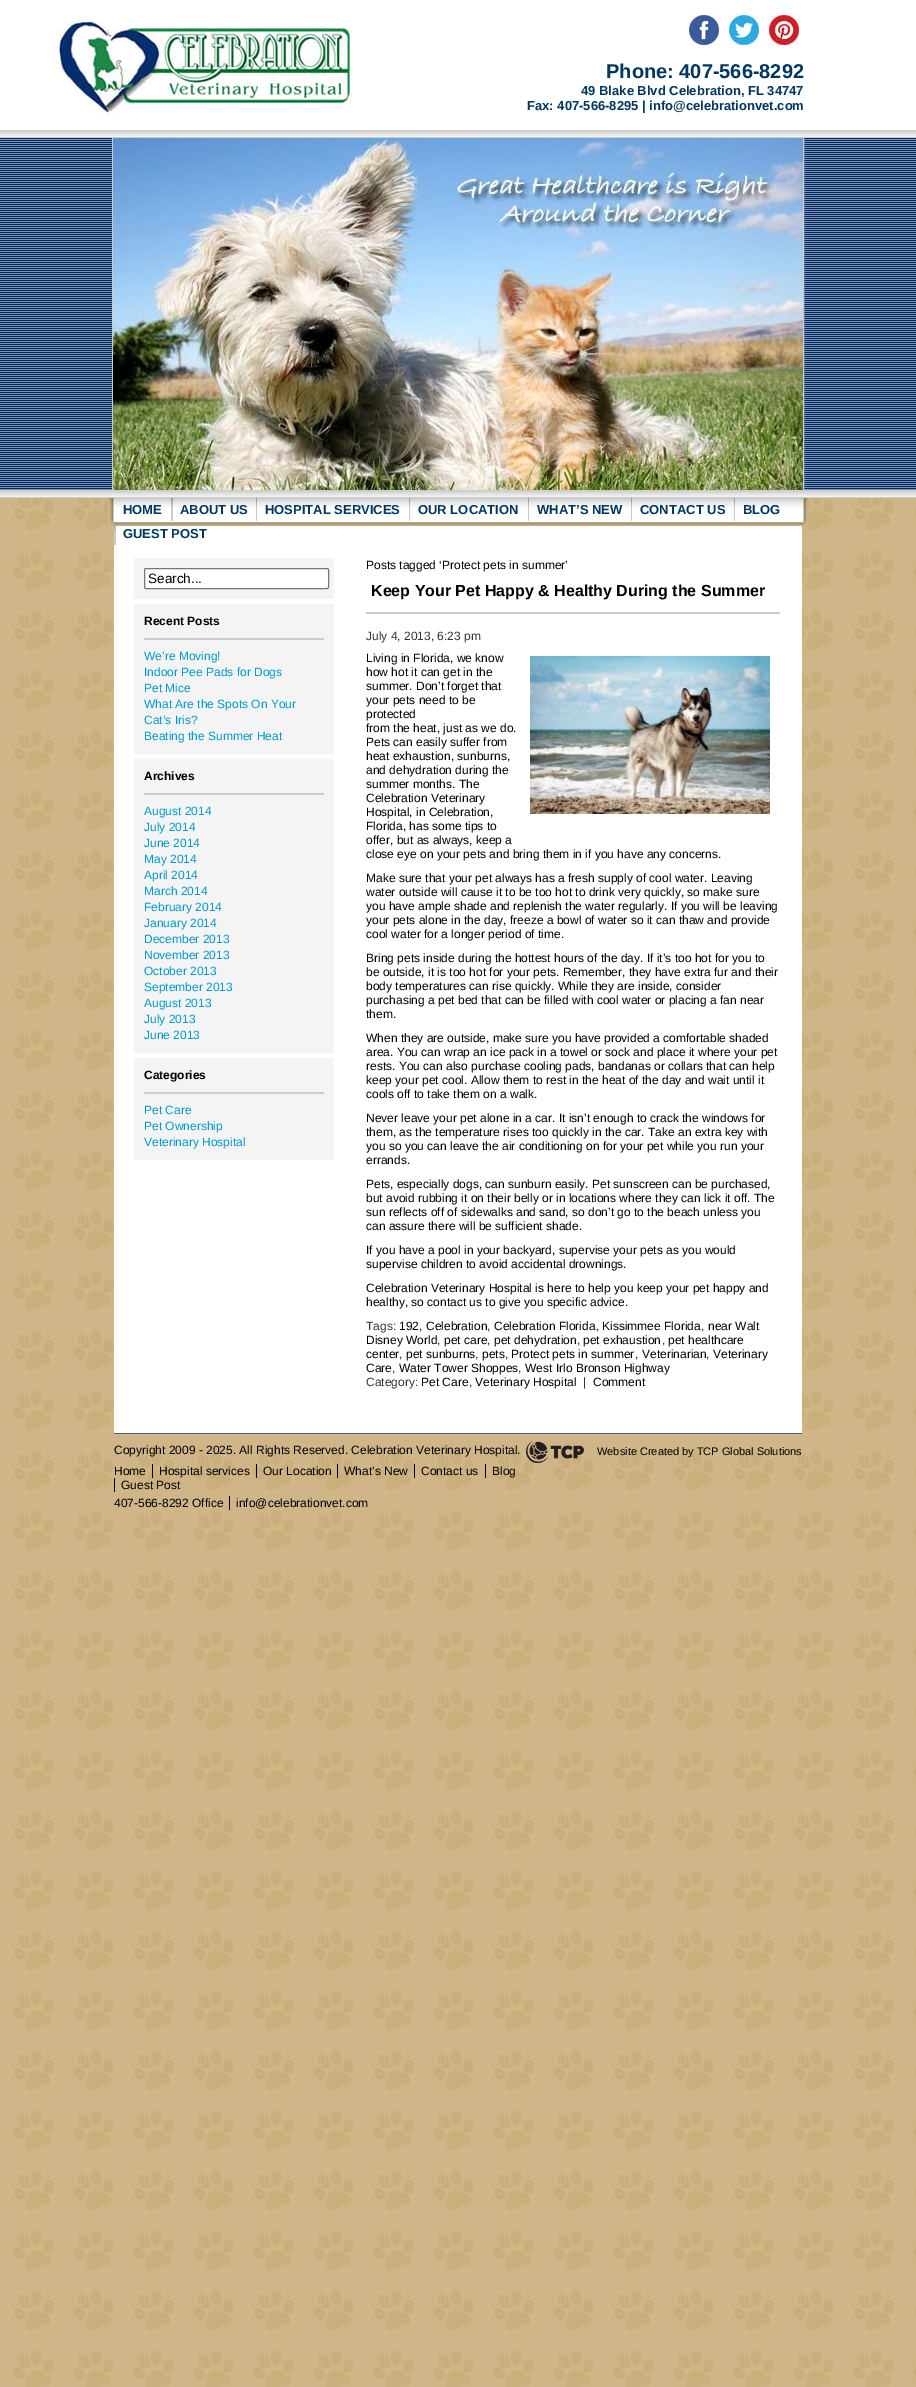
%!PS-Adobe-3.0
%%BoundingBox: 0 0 916 2387
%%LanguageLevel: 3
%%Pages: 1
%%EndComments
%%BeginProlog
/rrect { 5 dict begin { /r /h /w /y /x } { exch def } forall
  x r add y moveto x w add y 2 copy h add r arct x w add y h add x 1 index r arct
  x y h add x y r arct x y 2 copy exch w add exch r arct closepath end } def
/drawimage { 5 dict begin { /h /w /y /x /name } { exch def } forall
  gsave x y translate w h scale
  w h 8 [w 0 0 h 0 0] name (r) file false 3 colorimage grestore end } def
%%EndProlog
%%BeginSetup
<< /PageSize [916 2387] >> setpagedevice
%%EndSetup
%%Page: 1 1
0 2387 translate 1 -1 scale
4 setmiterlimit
1 setgray
0 0 916 2387 rectfill
(images/1.raw) 0 498 916 1889 drawimage
(images/2.raw) 0 0 916 498 drawimage
(images/3.raw) 58 20 294 96 drawimage
(images/4.raw) 689 15 30 30 drawimage
(images/5.raw) 729 15 30 30 drawimage
(images/6.raw) 769 15 30 30 drawimage
0.804 setgray
112.5 137.5 691 353 rectstroke
(images/7.raw) 113 138 690 352 drawimage
(images/8.raw) 114 498 689 28 drawimage
(images/9.raw) 108 498 6 28 drawimage
(images/10.raw) 171 498 2 23 drawimage
(images/11.raw) 256 498 1 23 drawimage
(images/11.raw) 409 498 1 23 drawimage
(images/11.raw) 528 498 1 23 drawimage
(images/11.raw) 631 498 1 23 drawimage
(images/11.raw) 734 498 1 23 drawimage
1 setgray
114 526 688 907 rectfill
(images/10.raw) 114 522 2 23 drawimage
(images/12.raw) 803 498 5 28 drawimage
0.957 setgray
134 558 200 41 rectfill
1 setgray
144.5 568.5 184 20 1.5 rrect gsave fill grestore
0.463 setgray
stroke
0.957 setgray
134 604 200 150 rectfill
0.8 setgray
144 638 180 2 rectfill
0.957 setgray
134 759 200 294 rectfill
0.8 setgray
144 793 180 2 rectfill
0.957 setgray
134 1058 200 102 rectfill
0.8 setgray
144 1092 180 2 rectfill
366 612 414 2 rectfill
(images/13.raw) 530 656 240 158 drawimage
(images/14.raw) 114 1433 688 2 drawimage
(images/15.raw) 526 1441 58 22 drawimage
0 setgray
152 1464 1 14 rectfill
256 1464 1 14 rectfill
337 1464 1 14 rectfill
414 1464 1 14 rectfill
485 1464 1 14 rectfill
114 1478 1 14 rectfill
229 1496 1 14 rectfill
/LiberationSans-Bold [20 0 0 -20 0 0] selectfont
0 0.216 0.376 setrgbcolor
606 78 moveto (Phone: 407-566-8292) show
/LiberationSans-Bold [13 0 0 -13 0 0] selectfont
581 95 moveto (49 Blake Blvd Celebration, FL 34747) show
527 110 moveto (Fax: 407-566-8295 | info@celebrationvet.com) show
123 514 moveto (HOME) show
180 514 moveto (ABOUT US) show
265 514 moveto (HOSPITAL SERVICES) show
418 514 moveto (OUR LOCATION) show
537 514 moveto (WHAT’S NEW) show
640 514 moveto (CONTACT US) show
743 514 moveto (BLOG) show
123 538 moveto (GUEST POST) show
/LiberationSans-Regular [13.5 0 0 -13.5 0 0] selectfont
0 setgray
148 583 moveto (Search...) show
/LiberationSans-Bold [12 0 0 -12 0 0] selectfont
144 625 moveto (Recent Posts) show
/LiberationSans-Regular [12 0 0 -12 0 0] selectfont
0 0.6 0.8 setrgbcolor
144 660 moveto (We’re Moving!) show
144 676 moveto (Indoor Pee Pads for Dogs) show
144 692 moveto (Pet Mice) show
144 708 moveto (What Are the Spots On Your) show
144 724 moveto (Cat’s Iris?) show
144 740 moveto (Beating the Summer Heat) show
/LiberationSans-Bold [12 0 0 -12 0 0] selectfont
0 setgray
144 780 moveto (Archives) show
/LiberationSans-Regular [12 0 0 -12 0 0] selectfont
0 0.6 0.8 setrgbcolor
144 815 moveto (August 2014) show
144 831 moveto (July 2014) show
144 847 moveto (June 2014) show
144 863 moveto (May 2014) show
144 879 moveto (April 2014) show
144 895 moveto (March 2014) show
144 911 moveto (February 2014) show
144 927 moveto (January 2014) show
144 943 moveto (December 2013) show
144 959 moveto (November 2013) show
144 975 moveto (October 2013) show
144 991 moveto (September 2013) show
144 1007 moveto (August 2013) show
144 1023 moveto (July 2013) show
144 1039 moveto (June 2013) show
/LiberationSans-Bold [12 0 0 -12 0 0] selectfont
0 setgray
144 1079 moveto (Categories) show
/LiberationSans-Regular [12 0 0 -12 0 0] selectfont
0 0.6 0.8 setrgbcolor
144 1114 moveto (Pet Care) show
144 1130 moveto (Pet Ownership) show
144 1146 moveto (Veterinary Hospital) show
0 setgray
366 569 moveto (Posts tagged ‘Protect pets in summer’) show
/LiberationSans-Bold [16 0 0 -16 0 0] selectfont
371 596 moveto (Keep Your Pet Happy & Healthy During the Summer) show
/LiberationSans-Regular [12 0 0 -12 0 0] selectfont
0.2 setgray
366 640 moveto (July 4, 2013, 6:23 pm) show
0 setgray
366 662 moveto (Living in Florida, we know) show
366 676 moveto (how hot it can get in the) show
366 690 moveto (summer. Don’t forget that) show
366 704 moveto (your pets need to be) show
366 718 moveto (protected) show
366 732 moveto (from the heat, just as we do.) show
366 746 moveto (Pets can easily suffer from) show
366 760 moveto (heat exhaustion, sunburns,) show
366 774 moveto (and dehydration during the) show
366 788 moveto (summer months. The) show
366 802 moveto (Celebration Veterinary) show
366 816 moveto (Hospital, in Celebration,) show
366 830 moveto (Florida, has some tips to) show
366 844 moveto (offer, but as always, keep a) show
366 858 moveto (close eye on your pets and bring them in if you have any concerns.) show
366 882 moveto (Make sure that your pet always has a fresh supply of cool water. Leaving) show
366 896 moveto (water outside will cause it to be too hot to drink very quickly, so make sure) show
366 910 moveto (you have ample shade and replenish the water regularly. If you will be leaving) show
366 924 moveto (your pets alone in the day, freeze a bowl of water so it can thaw and provide) show
366 938 moveto (cool water for a longer period of time.) show
366 962 moveto (Bring pets inside during the hottest hours of the day. If it’s too hot for you to) show
366 976 moveto (be outside, it is too hot for your pets. Remember, they have extra fur and their) show
366 990 moveto (body temperatures can rise quickly. While they are inside, consider) show
366 1004 moveto (purchasing a pet bed that can be filled with cool water or placing a fan near) show
366 1018 moveto (them.) show
366 1042 moveto (When they are outside, make sure you have provided a comfortable shaded) show
366 1056 moveto (area. You can wrap an ice pack in a towel or sock and place it where your pet) show
366 1070 moveto (rests. You can also purchase cooling pads, bandanas or collars that can help) show
366 1084 moveto (keep your pet cool. Allow them to rest in the heat of the day and wait until it) show
366 1098 moveto (cools off to take them on a walk.) show
366 1122 moveto (Never leave your pet alone in a car. It isn’t enough to crack the windows for) show
366 1136 moveto (them, as the temperature rises too quickly in the car. Take an extra key with) show
366 1150 moveto (you so you can leave the air conditioning on for your pet while you run your) show
366 1164 moveto (errands.) show
366 1188 moveto (Pets, especially dogs, can sunburn easily. Pet sunscreen can be purchased,) show
366 1202 moveto (but avoid rubbing it on their belly or in locations where they can lick it off. The) show
366 1216 moveto (sun reflects off of sidewalks and sand, so don’t go to the beach unless you) show
366 1230 moveto (can assure there will be sufficient shade.) show
366 1254 moveto (If you have a pool in your backyard, supervise your pets as you would) show
366 1268 moveto (supervise children to avoid accidental drownings.) show
366 1292 moveto (Celebration Veterinary Hospital is here to help you keep your pet happy and) show
366 1306 moveto (healthy, so contact us to give you specific advice.) show
0.2 setgray
366 1330 moveto (Tags:) show
0 setgray
399 1330 moveto (192) show
0.2 setgray
419 1330 moveto (,) show
0 setgray
426 1330 moveto (Celebration) show
0.2 setgray
487 1330 moveto (,) show
0 setgray
494 1330 moveto (Celebration Florida) show
0.2 setgray
596 1330 moveto (,) show
0 setgray
602 1330 moveto (Kissimmee Florida) show
0.2 setgray
701 1330 moveto (,) show
0 setgray
708 1330 moveto (near Walt) show
366 1344 moveto (Disney World) show
0.2 setgray
437 1344 moveto (,) show
0 setgray
444 1344 moveto (pet care) show
0.2 setgray
487 1344 moveto (,) show
0 setgray
494 1344 moveto (pet dehydration) show
0.2 setgray
577 1344 moveto (,) show
0 setgray
583 1344 moveto (pet exhaustion) show
0.2 setgray
662 1344 moveto (,) show
0 setgray
668 1344 moveto (pet healthcare) show
366 1358 moveto (center) show
0.2 setgray
399 1358 moveto (,) show
0 setgray
406 1358 moveto (pet sunburns) show
0.2 setgray
475 1358 moveto (,) show
0 setgray
482 1358 moveto (pets) show
0.2 setgray
505 1358 moveto (,) show
0 setgray
511 1358 moveto (Protect pets in summer) show
0.2 setgray
635 1358 moveto (,) show
0 setgray
642 1358 moveto (Veterinarian) show
0.2 setgray
706 1358 moveto (,) show
0 setgray
713 1358 moveto (Veterinary) show
366 1372 moveto (Care) show
0.2 setgray
392 1372 moveto (,) show
0 setgray
399 1372 moveto (Water Tower Shoppes) show
0.2 setgray
518 1372 moveto (,) show
0 setgray
525 1372 moveto (West Irlo Bronson Highway) show
0.2 setgray
366 1386 moveto (Category:) show
0 setgray
421 1386 moveto (Pet Care) show
0.2 setgray
469 1386 moveto (,) show
0 setgray
475 1386 moveto (Veterinary Hospital) show
0.2 setgray
583 1386 moveto (|) show
0 setgray
593 1386 moveto (Comment) show
114 1454 moveto (Copyright 2009 - 2025. All Rights Reserved. Celebration Veterinary Hospital.) show
/LiberationSans-Regular [11 0 0 -11 0 0] selectfont
597 1455 moveto (Website Created by TCP Global Solutions) show
/LiberationSans-Regular [12 0 0 -12 0 0] selectfont
114 1475 moveto (Home) show
159 1475 moveto (Hospital services) show
263 1475 moveto (Our Location) show
344 1475 moveto (What’s New) show
421 1475 moveto (Contact us) show
492 1475 moveto (Blog) show
121 1489 moveto (Guest Post) show
114 1507 moveto (407-566-8292 Office) show
236 1507 moveto (info@celebrationvet.com) show
showpage
%%EOF
